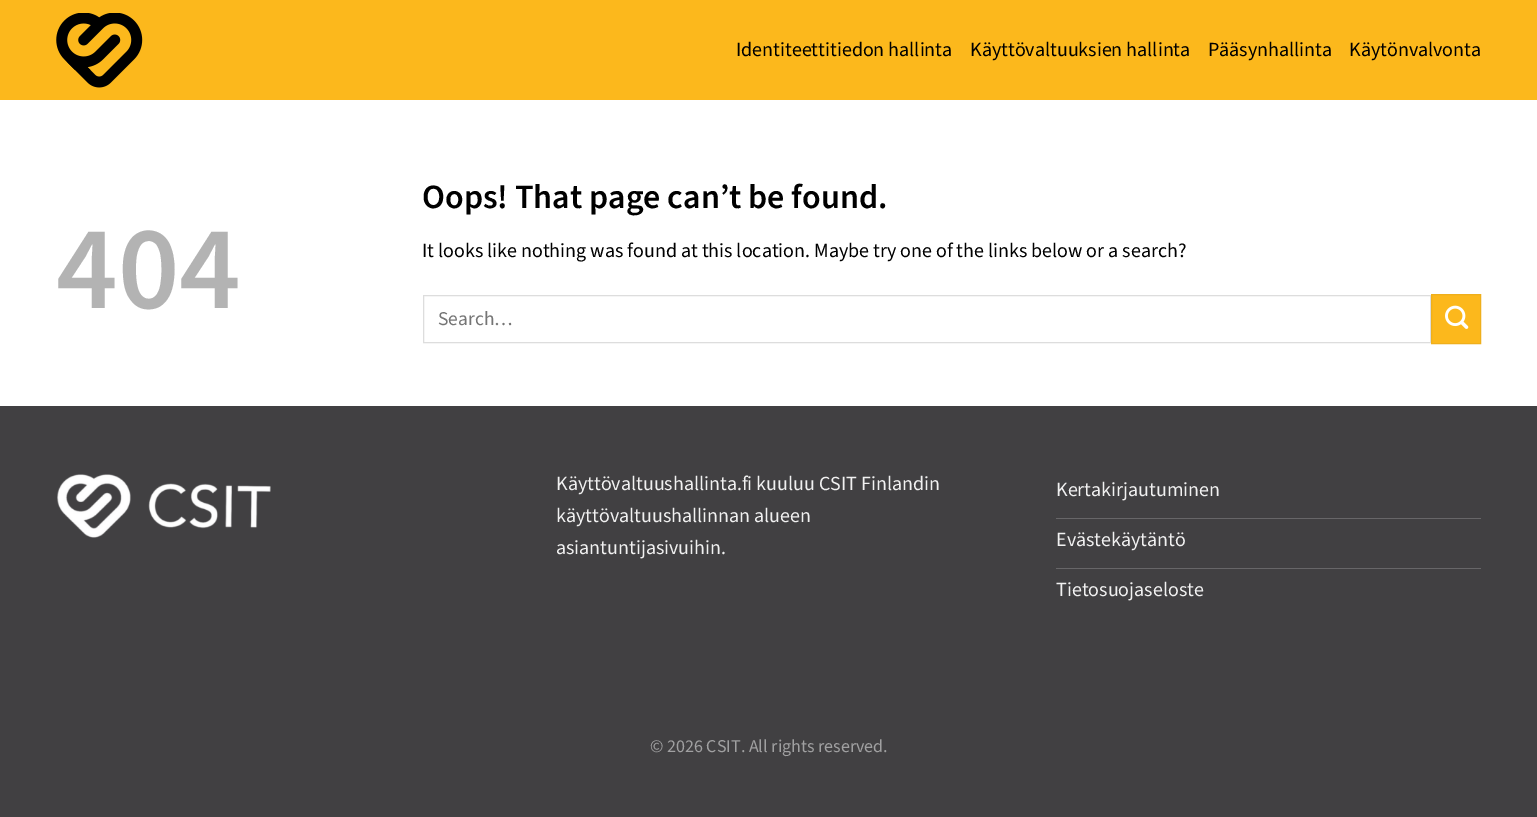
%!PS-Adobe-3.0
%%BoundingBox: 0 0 1537 817
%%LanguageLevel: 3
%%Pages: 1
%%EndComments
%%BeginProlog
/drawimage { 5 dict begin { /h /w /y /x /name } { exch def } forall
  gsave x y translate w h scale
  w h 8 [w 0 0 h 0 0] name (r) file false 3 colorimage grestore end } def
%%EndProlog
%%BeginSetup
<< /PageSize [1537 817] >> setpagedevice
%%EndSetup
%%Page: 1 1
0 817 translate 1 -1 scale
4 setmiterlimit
0.255 0.251 0.259 setrgbcolor
0 0 1537 817 rectfill
1 setgray
0 100 1537 306 rectfill
0.988 0.722 0.11 setrgbcolor
0 0 1537 100 rectfill
(images/1.raw) 56 13 87 75 drawimage
0.867 setgray
423.5 295.5 1007 47 rectstroke
0.988 0.722 0.11 setrgbcolor
newpath 1431.5 294.5 moveto 1480.5 294.5 lineto 1480.5 343.5 lineto 1431.5 343.5 lineto closepath gsave fill grestore
0.937 0.686 0.106 setrgbcolor
stroke
(images/2.raw) 1445 305 24 24 drawimage
(images/3.raw) 57 474 214 64 drawimage
0.404 0.4 0.408 setrgbcolor
1056 518 425 1 rectfill
1056 568 425 1 rectfill
/SourceSans3-Regular [20 0 0 -20 0 0] selectfont
0 setgray
736 56 moveto (Identiteettitiedon hallinta) show
970 56 moveto (Käyttövaltuuksien hallinta) show
1208 56 moveto (Pääsynhallinta) show
1349 56 moveto (Käytönvalvonta) show
/SourceSans3-SemiBold [120 0 0 -120 0 0] selectfont
0.702 setgray
56 308 moveto (404) show
/SourceSans3-SemiBold [34 0 0 -34 0 0] selectfont
0 setgray
422 208 moveto (Oops! That page can’t be found.) show
/SourceSans3-Regular [20 0 0 -20 0 0] selectfont
422 257 moveto (It looks like nothing was found at this location. Maybe try one of the links below or a search?) show
/SourceSans3-Regular [19.5 0 0 -19.5 0 0] selectfont
0.459 setgray
438 325 moveto (Search…) show
/SourceSans3-Regular [20 0 0 -20 0 0] selectfont
0.945 setgray
556 490 moveto (Käyttövaltuushallinta.fi kuuluu CSIT Finlandin) show
556 522 moveto (käyttövaltuushallinnan alueen) show
556 554 moveto (asiantuntijasivuihin.) show
1056 496 moveto (Kertakirjautuminen) show
1056 546 moveto (Evästekäytäntö) show
1056 596 moveto (Tietosuojaseloste) show
/SourceSans3-Regular [18 0 0 -18 0 0] selectfont
0.627 0.627 0.631 setrgbcolor
650 752 moveto (© 2026 CSIT. All rights reserved.) show
showpage
%%EOF
